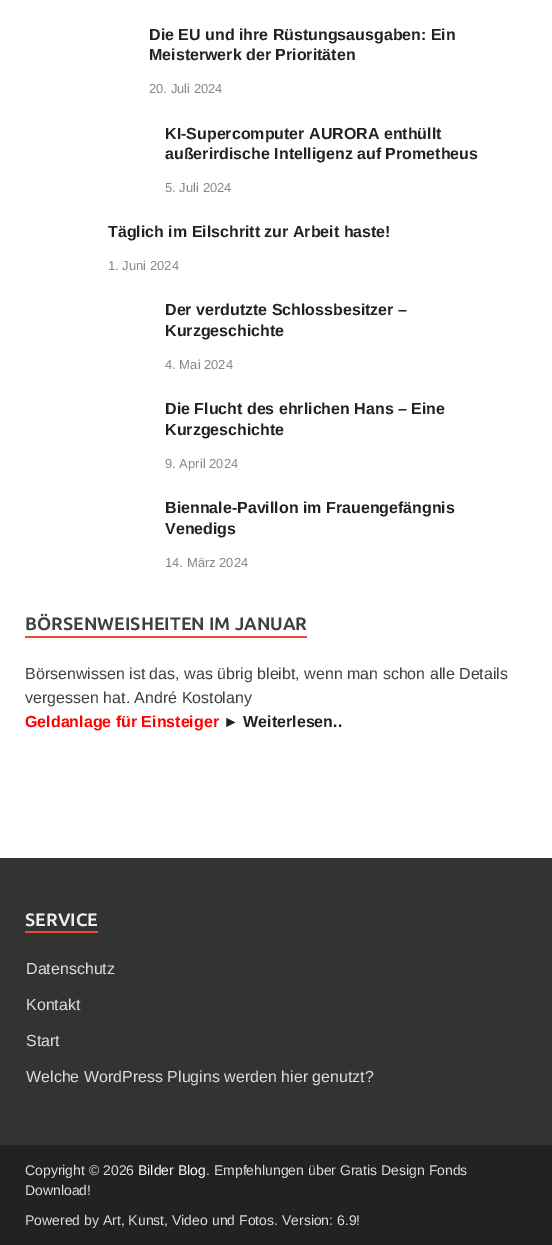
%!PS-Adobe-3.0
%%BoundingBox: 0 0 552 1245
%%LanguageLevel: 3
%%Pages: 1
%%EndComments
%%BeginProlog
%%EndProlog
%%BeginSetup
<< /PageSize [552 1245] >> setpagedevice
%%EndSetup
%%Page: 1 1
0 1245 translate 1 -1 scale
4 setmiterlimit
1 setgray
0 0 552 1245 rectfill
0.906 0.298 0.235 setrgbcolor
25 636 282 2 rectfill
0.2 setgray
0 858 552 287 rectfill
0.906 0.298 0.235 setrgbcolor
25 931 73 2 rectfill
0.133 setgray
0 1145 552 100 rectfill
/LiberationSans-Bold [16 0 0 -16 0 0] selectfont
149 40 moveto (Die EU und ihre Rüstungsausgaben: Ein) show
149 60 moveto (Meisterwerk der Prioritäten) show
/LiberationSans-Regular [13 0 0 -13 0 0] selectfont
0.533 setgray
149 93 moveto (20. Juli 2024) show
/LiberationSans-Bold [16 0 0 -16 0 0] selectfont
0.133 setgray
165 139 moveto (KI-Supercomputer AURORA enthüllt) show
165 159 moveto (außerirdische Intelligenz auf Prometheus) show
/LiberationSans-Regular [13 0 0 -13 0 0] selectfont
0.533 setgray
165 192 moveto (5. Juli 2024) show
/LiberationSans-Bold [16 0 0 -16 0 0] selectfont
0.133 setgray
108 237 moveto (Täglich im Eilschritt zur Arbeit haste!) show
/LiberationSans-Regular [13 0 0 -13 0 0] selectfont
0.533 setgray
108 270 moveto (1. Juni 2024) show
/LiberationSans-Bold [16 0 0 -16 0 0] selectfont
0.133 setgray
165 315 moveto (Der verdutzte Schlossbesitzer –) show
165 336 moveto (Kurzgeschichte) show
/LiberationSans-Regular [13 0 0 -13 0 0] selectfont
0.533 setgray
165 369 moveto (4. Mai 2024) show
/LiberationSans-Bold [16 0 0 -16 0 0] selectfont
0.133 setgray
165 414 moveto (Die Flucht des ehrlichen Hans – Eine) show
165 435 moveto (Kurzgeschichte) show
/LiberationSans-Regular [13 0 0 -13 0 0] selectfont
0.533 setgray
165 468 moveto (9. April 2024) show
/LiberationSans-Bold [16 0 0 -16 0 0] selectfont
0.133 setgray
165 513 moveto (Biennale-Pavillon im Frauengefängnis) show
165 534 moveto (Venedigs) show
/LiberationSans-Regular [13 0 0 -13 0 0] selectfont
0.533 setgray
165 567 moveto (14. März 2024) show
/Ubuntu-Bold [18 0 0 -18 0 0] selectfont
0.251 setgray
25 630 moveto (BÖRSENWEISHEITEN IM JANUAR) show
/LiberationSans-Regular [16 0 0 -16 0 0] selectfont
25 679 moveto (Börsenwissen ist das, was übrig bleibt, wenn man schon alle Details) show
25 703 moveto (vergessen hat. André Kostolany) show
/LiberationSans-Bold [16 0 0 -16 0 0] selectfont
1 0 0 setrgbcolor
25 727 moveto (Geldanlage für Einsteiger) show
0.133 setgray
223 727 moveto (► Weiterlesen..) show
/Ubuntu-Bold [18 0 0 -18 0 0] selectfont
0.933 setgray
25 926 moveto (SERVICE) show
/LiberationSans-Regular [16 0 0 -16 0 0] selectfont
0.867 setgray
26 974 moveto (Datenschutz) show
26 1010 moveto (Kontakt) show
26 1046 moveto (Start) show
26 1082 moveto (Welche WordPress Plugins werden hier genutzt?) show
/LiberationSans-Regular [14 0 0 -14 0 0] selectfont
25 1175 moveto (Copyright © 2026) show
1 setgray
138 1175 moveto (Bilder Blog) show
0.867 setgray
206 1175 moveto (. Empfehlungen über Gratis Design Fonds) show
25 1195 moveto (Download!) show
25 1225 moveto (Powered by Art, Kunst, Video und Fotos. Version: 6.9!) show
showpage
%%EOF
